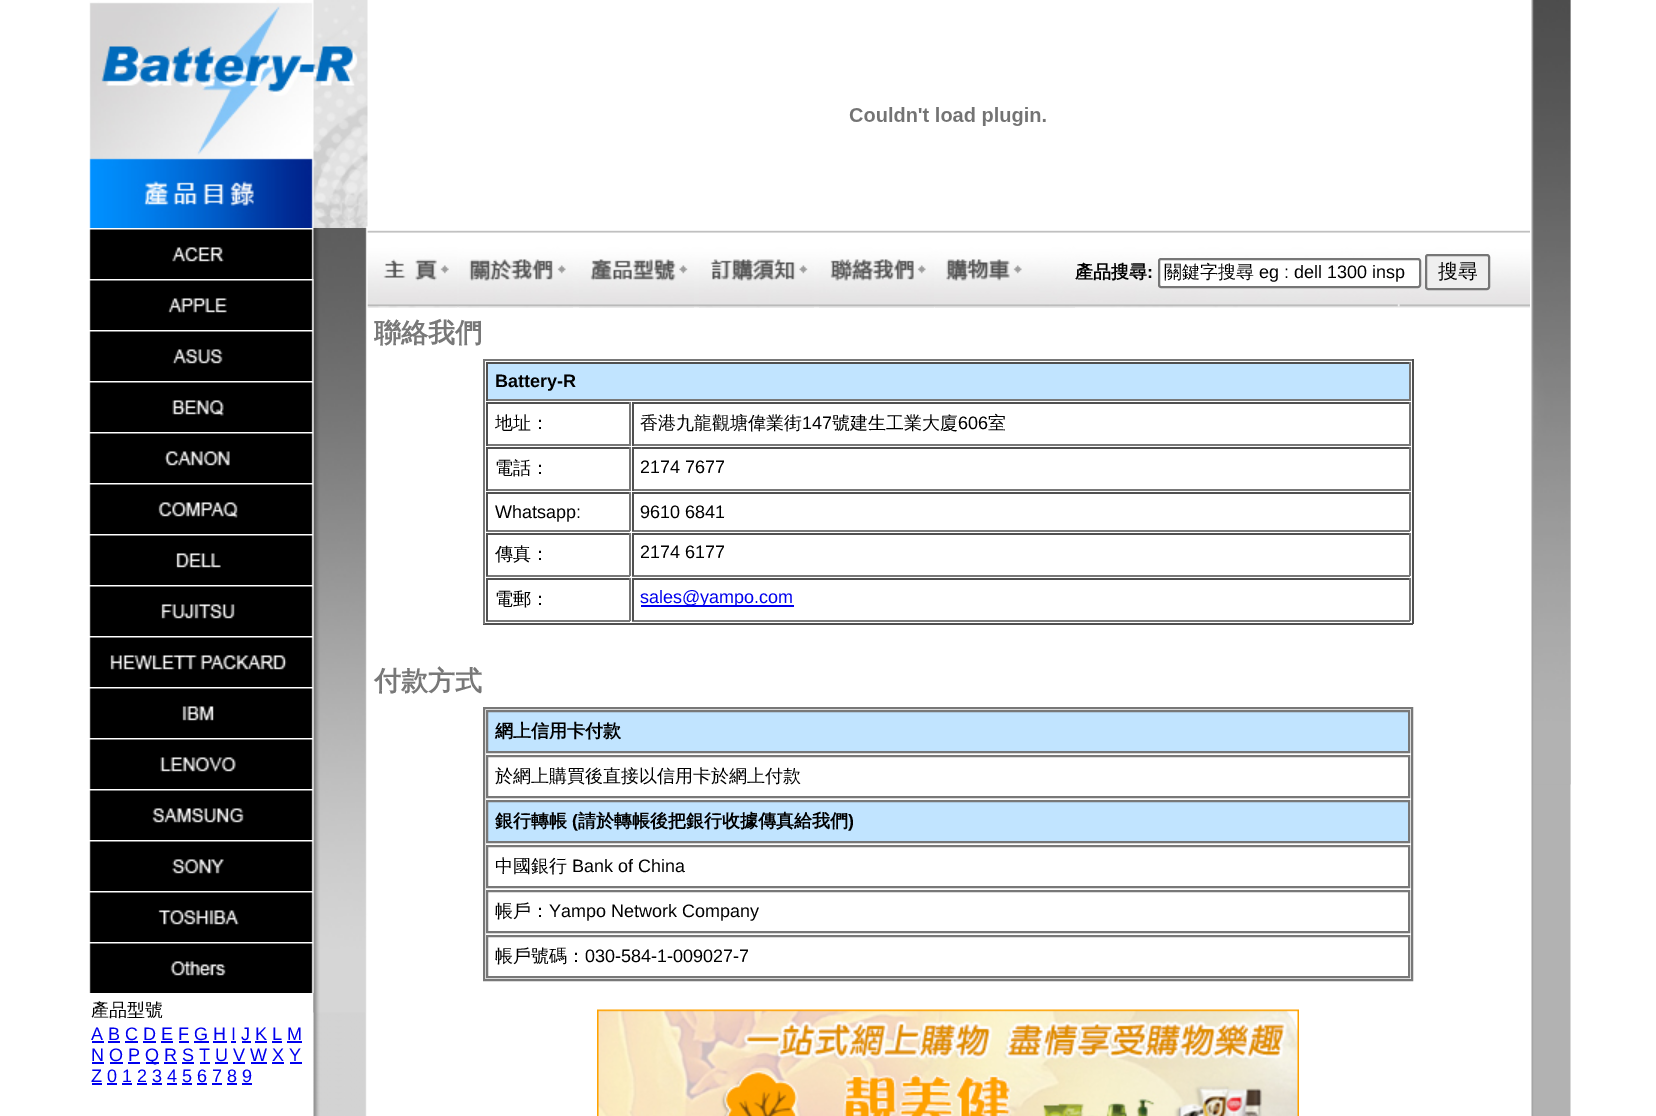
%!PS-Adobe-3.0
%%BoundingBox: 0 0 1656 1116
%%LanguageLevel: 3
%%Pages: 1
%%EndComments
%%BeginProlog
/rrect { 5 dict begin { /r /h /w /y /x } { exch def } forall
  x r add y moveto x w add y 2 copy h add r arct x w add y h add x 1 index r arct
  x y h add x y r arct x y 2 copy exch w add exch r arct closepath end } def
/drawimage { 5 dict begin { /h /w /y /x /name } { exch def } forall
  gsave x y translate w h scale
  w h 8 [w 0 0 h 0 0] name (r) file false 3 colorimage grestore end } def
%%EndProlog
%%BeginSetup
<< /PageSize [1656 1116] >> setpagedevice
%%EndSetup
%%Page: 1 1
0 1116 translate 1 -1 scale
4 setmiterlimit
1 setgray
0 0 1656 1116 rectfill
(images/1.raw) 849 107 197 19 drawimage
(images/2.raw) 367 230 1163 78 drawimage
(images/3.raw) 367 231 90 77 drawimage
(images/4.raw) 459 259 114 49 drawimage
(images/5.raw) 579 259 115 49 drawimage
(images/6.raw) 699 259 115 49 drawimage
(images/7.raw) 819 259 115 49 drawimage
0.91 setgray
935 307 140 1 rectfill
(images/8.raw) 946 259 76 22 drawimage
1 setgray
1159 259 261 28 2 rrect gsave fill grestore
0.463 setgray
2 setlinewidth
stroke
0.937 setgray
1426 255 63 34 2 rrect gsave fill grestore
0.463 setgray
stroke
0.471 setgray
483 359 930 2 rectfill
0.314 setgray
1412 359 2 265 rectfill
483 623 930 2 rectfill
0.471 setgray
483 359 2 265 rectfill
0.757 0.894 1 setrgbcolor
488 364 921 35 rectfill
0.314 setgray
486 362 924 2 rectfill
0.471 setgray
1409 362 2 39 rectfill
486 399 924 2 rectfill
0.314 setgray
486 362 2 39 rectfill
486 402 144 2 rectfill
0.471 setgray
629 402 2 44 rectfill
486 444 144 2 rectfill
0.314 setgray
486 402 2 44 rectfill
632 402 778 2 rectfill
0.471 setgray
1409 402 2 44 rectfill
632 444 778 2 rectfill
0.314 setgray
632 402 2 44 rectfill
486 447 144 2 rectfill
0.471 setgray
629 447 2 44 rectfill
486 489 144 2 rectfill
0.314 setgray
486 447 2 44 rectfill
632 447 778 2 rectfill
0.471 setgray
1409 447 2 44 rectfill
632 489 778 2 rectfill
0.314 setgray
632 447 2 44 rectfill
486 492 144 2 rectfill
0.471 setgray
629 492 2 39 rectfill
486 530 144 2 rectfill
0.314 setgray
486 492 2 39 rectfill
632 492 778 2 rectfill
0.471 setgray
1409 492 2 39 rectfill
632 530 778 2 rectfill
0.314 setgray
632 492 2 39 rectfill
486 533 144 2 rectfill
0.471 setgray
629 533 2 43 rectfill
486 575 144 2 rectfill
0.314 setgray
486 533 2 43 rectfill
632 533 778 2 rectfill
0.471 setgray
1409 533 2 43 rectfill
632 575 778 2 rectfill
0.314 setgray
632 533 2 43 rectfill
486 578 144 2 rectfill
0.471 setgray
629 578 2 43 rectfill
486 620 144 2 rectfill
0.314 setgray
486 578 2 43 rectfill
632 578 778 2 rectfill
0.471 setgray
1409 578 2 43 rectfill
632 620 778 2 rectfill
0.314 setgray
632 578 2 43 rectfill
0 0 0.933 setrgbcolor
641 605 153 2 rectfill
0.471 setgray
484 708 928 272 rectstroke
0.757 0.894 1 setrgbcolor
newpath 487 711 moveto 1409 711 lineto 1409 752 lineto 487 752 lineto closepath gsave fill grestore
0.471 setgray
stroke
487 756 922 41 rectstroke
0.757 0.894 1 setrgbcolor
newpath 487 801 moveto 1409 801 lineto 1409 842 lineto 487 842 lineto closepath gsave fill grestore
0.471 setgray
stroke
487 846 922 41 rectstroke
487 891 922 41 rectstroke
487 936 922 41 rectstroke
(images/9.raw) 597 1009 702 107 drawimage
(images/10.raw) 1531 0 40 1116 drawimage
(images/11.raw) 1532 0 39 785 drawimage
(images/12.raw) 313 228 54 888 drawimage
(images/13.raw) 89 0 279 228 drawimage
(images/14.raw) 89 228 225 51 drawimage
(images/15.raw) 313 228 55 785 drawimage
(images/16.raw) 89 279 225 51 drawimage
(images/17.raw) 89 330 225 51 drawimage
(images/18.raw) 89 381 225 51 drawimage
(images/19.raw) 89 432 225 51 drawimage
(images/20.raw) 89 483 225 51 drawimage
(images/21.raw) 89 534 225 51 drawimage
(images/22.raw) 89 585 225 51 drawimage
(images/23.raw) 89 636 225 51 drawimage
(images/24.raw) 89 687 225 51 drawimage
(images/25.raw) 89 738 225 51 drawimage
(images/26.raw) 89 789 225 51 drawimage
(images/27.raw) 89 840 225 51 drawimage
(images/28.raw) 89 891 225 51 drawimage
(images/29.raw) 89 942 225 51 drawimage
0 0 0.933 setrgbcolor
92 1041 12 2 rectfill
108 1041 12 2 rectfill
125 1041 13 2 rectfill
143 1041 13 2 rectfill
161 1041 12 2 rectfill
179 1041 10 2 rectfill
194 1041 15 2 rectfill
213 1041 14 2 rectfill
231 1041 5 2 rectfill
242 1041 9 2 rectfill
255 1041 12 2 rectfill
272 1041 10 2 rectfill
287 1041 15 2 rectfill
92 1062 12 2 rectfill
146 1062 13 2 rectfill
110 1062 13 2 rectfill
128 1062 12 2 rectfill
164 1062 13 2 rectfill
182 1062 12 2 rectfill
200 1062 10 2 rectfill
215 1062 13 2 rectfill
233 1062 12 2 rectfill
251 1062 16 2 rectfill
272 1062 12 2 rectfill
290 1062 12 2 rectfill
92 1083 10 2 rectfill
107 1083 10 2 rectfill
122 1083 10 2 rectfill
137 1083 10 2 rectfill
152 1083 10 2 rectfill
167 1083 10 2 rectfill
182 1083 10 2 rectfill
197 1083 10 2 rectfill
212 1083 10 2 rectfill
227 1083 10 2 rectfill
242 1083 10 2 rectfill
/WenQuanYiZenHei-Bold [18 0 0 -18 0 0] selectfont
0 setgray
1075 278 moveto (產品搜尋) show
/LiberationSans-Bold [18 0 0 -18 0 0] selectfont
1147 278 moveto (:) show
/WenQuanYiZenHei-Medium [18 0 0 -18 0 0] selectfont
1164 278 moveto (關鍵字搜尋) show
/LiberationSans-Regular [18 0 0 -18 0 0] selectfont
1259 278 moveto (eg : dell 1300 insp) show
/WenQuanYiZenHei-Medium [20 0 0 -20 0 0] selectfont
1438 278 moveto (搜尋) show
/WenQuanYiZenHei-Bold [27 0 0 -27 0 0] selectfont
0.471 setgray
374 342 moveto (聯絡我們) show
/LiberationSans-Bold [18 0 0 -18 0 0] selectfont
0 setgray
495 387 moveto (Battery-R) show
/WenQuanYiZenHei-Medium [18 0 0 -18 0 0] selectfont
495 429 moveto (地址：) show
640 429 moveto (香港九龍觀塘偉業街) show
/LiberationSans-Regular [18 0 0 -18 0 0] selectfont
802 429 moveto (147) show
/WenQuanYiZenHei-Medium [18 0 0 -18 0 0] selectfont
832 429 moveto (號建生工業大廈) show
/LiberationSans-Regular [18 0 0 -18 0 0] selectfont
958 429 moveto (606) show
/WenQuanYiZenHei-Medium [18 0 0 -18 0 0] selectfont
988 429 moveto (室) show
495 474 moveto (電話：) show
/LiberationSans-Regular [18 0 0 -18 0 0] selectfont
640 473 moveto (2174 7677) show
495 518 moveto (Whatsapp:) show
640 518 moveto (9610 6841) show
/WenQuanYiZenHei-Medium [18 0 0 -18 0 0] selectfont
495 560 moveto (傳真：) show
/LiberationSans-Regular [18 0 0 -18 0 0] selectfont
640 558 moveto (2174 6177) show
/WenQuanYiZenHei-Medium [18 0 0 -18 0 0] selectfont
495 605 moveto (電郵：) show
/LiberationSans-Regular [18 0 0 -18 0 0] selectfont
0 0 0.933 setrgbcolor
640 603 moveto (sales@yampo.com) show
/WenQuanYiZenHei-Bold [27 0 0 -27 0 0] selectfont
0.471 setgray
374 690 moveto (付款方式) show
/WenQuanYiZenHei-Bold [18 0 0 -18 0 0] selectfont
0 setgray
495 737 moveto (網上信用卡付款) show
/WenQuanYiZenHei-Medium [18 0 0 -18 0 0] selectfont
495 782 moveto (於網上購買後直接以信用卡於網上付款) show
/WenQuanYiZenHei-Bold [18 0 0 -18 0 0] selectfont
495 827 moveto (銀行轉帳) show
/LiberationSans-Bold [18 0 0 -18 0 0] selectfont
572 827 moveto (\() show
/WenQuanYiZenHei-Bold [18 0 0 -18 0 0] selectfont
578 827 moveto (請於轉帳後把銀行收據傳真給我們) show
/LiberationSans-Bold [18 0 0 -18 0 0] selectfont
848 827 moveto (\)) show
/WenQuanYiZenHei-Medium [18 0 0 -18 0 0] selectfont
495 872 moveto (中國銀行) show
/LiberationSans-Regular [18 0 0 -18 0 0] selectfont
572 872 moveto (Bank of China) show
/WenQuanYiZenHei-Medium [18 0 0 -18 0 0] selectfont
495 917 moveto (帳戶：) show
/LiberationSans-Regular [18 0 0 -18 0 0] selectfont
549 917 moveto (Yampo Network Company) show
/WenQuanYiZenHei-Medium [18 0 0 -18 0 0] selectfont
495 962 moveto (帳戶號碼：) show
/LiberationSans-Regular [18 0 0 -18 0 0] selectfont
585 962 moveto (030-584-1-009027-7) show
/WenQuanYiZenHei-Medium [18 0 0 -18 0 0] selectfont
91 1016 moveto (產品型號) show
/LiberationSans-Regular [18 0 0 -18 0 0] selectfont
0 0 0.933 setrgbcolor
91 1040 moveto (A B C D E F G H I J K L M) show
91 1061 moveto (N O P) show
145 1061 moveto (Q R S T U V W X Y) show
91 1082 moveto (Z 0 1 2 3 4 5 6 7 8 9) show
showpage
%%EOF
